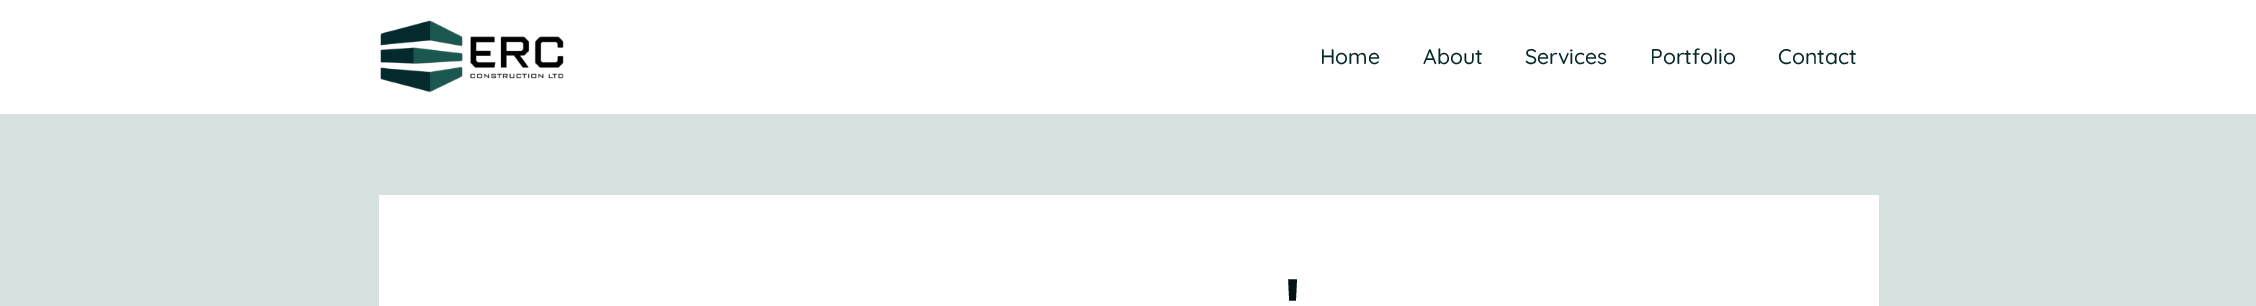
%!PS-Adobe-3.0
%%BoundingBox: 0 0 2256 306
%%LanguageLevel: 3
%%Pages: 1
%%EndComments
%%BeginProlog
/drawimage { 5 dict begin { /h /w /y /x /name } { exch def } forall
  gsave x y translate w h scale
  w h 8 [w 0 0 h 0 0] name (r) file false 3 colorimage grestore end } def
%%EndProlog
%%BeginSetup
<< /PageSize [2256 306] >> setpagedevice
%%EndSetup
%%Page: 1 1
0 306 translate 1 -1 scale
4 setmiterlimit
0.843 0.886 0.878 setrgbcolor
0 0 2256 306 rectfill
1 setgray
0 0 2256 114 rectfill
(images/1.raw) 380 20 184 73 drawimage
379 195 1500 111 rectfill
/Quicksand-Medium [21.25 0 0 -21.25 0 0] selectfont
0.024 0.157 0.169 setrgbcolor
1320 64 moveto (Home) show
1423 64 moveto (About) show
1525 64 moveto (Services) show
1650 64 moveto (Portfolio) show
1778 64 moveto (Contact) show
/LiberationSans-Regular [100 0 0 -100 0 0] selectfont
0.004 0.071 0.078 setrgbcolor
1283 348 moveto (') show
showpage
%%EOF
